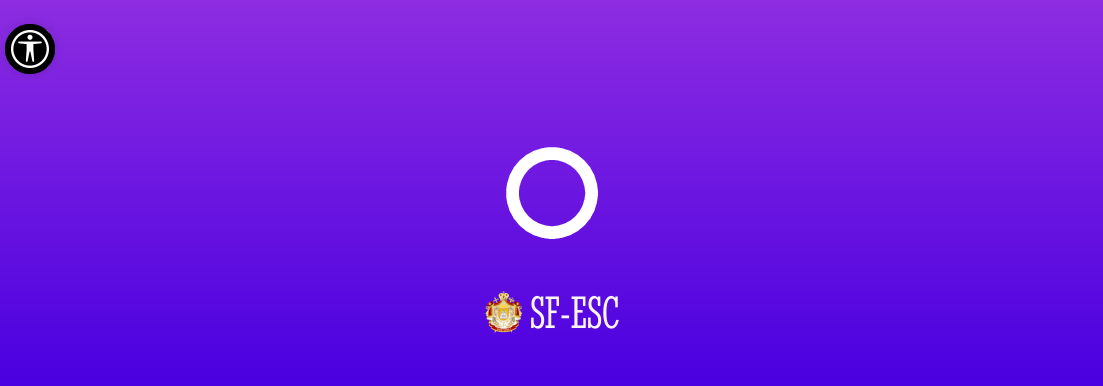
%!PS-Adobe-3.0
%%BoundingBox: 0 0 1103 386
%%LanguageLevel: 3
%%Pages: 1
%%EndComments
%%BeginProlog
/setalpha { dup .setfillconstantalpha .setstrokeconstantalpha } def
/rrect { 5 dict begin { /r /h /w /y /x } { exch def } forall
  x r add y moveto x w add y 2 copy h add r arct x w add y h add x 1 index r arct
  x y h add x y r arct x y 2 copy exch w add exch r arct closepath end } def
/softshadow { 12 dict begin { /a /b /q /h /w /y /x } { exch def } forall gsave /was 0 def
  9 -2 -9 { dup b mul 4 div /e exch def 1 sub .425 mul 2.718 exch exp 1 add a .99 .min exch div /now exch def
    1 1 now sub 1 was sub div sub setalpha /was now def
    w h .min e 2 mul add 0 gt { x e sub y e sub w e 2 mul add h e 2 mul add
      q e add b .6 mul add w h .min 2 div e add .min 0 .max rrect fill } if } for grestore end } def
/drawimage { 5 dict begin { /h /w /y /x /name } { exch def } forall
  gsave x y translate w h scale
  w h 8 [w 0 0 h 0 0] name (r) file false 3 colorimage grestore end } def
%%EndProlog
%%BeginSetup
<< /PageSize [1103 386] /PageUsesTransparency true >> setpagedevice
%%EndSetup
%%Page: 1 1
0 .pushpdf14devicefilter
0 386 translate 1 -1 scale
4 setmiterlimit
1 setgray
0 0 1103 386 rectfill
gsave newpath 0 0 moveto 1103 0 lineto 1103 386 lineto 0 386 lineto closepath clip newpath
<< /ShadingType 2 /ColorSpace /DeviceRGB /Coords [552 0 552 386] /Extend [true true] /Function << /FunctionType 2 /Domain [0 1] /C0 [0.557 0.176 0.886] /C1 [0.29 0 0.878] /N 1 >> >> shfill grestore
12.5 setlinewidth
newpath 552 193 39.5 0 360 arc closepath stroke
(images/1.raw) 485 291 134 42 drawimage
0 setgray
5 24 50 50 25 5 0.1 softshadow
(images/3.raw) 51 36 2 4 drawimage
newpath 30 49 25 0 360 arc closepath fill
(images/2.raw) 11 30 38 38 drawimage
.poppdf14devicefilter showpage
%%EOF
